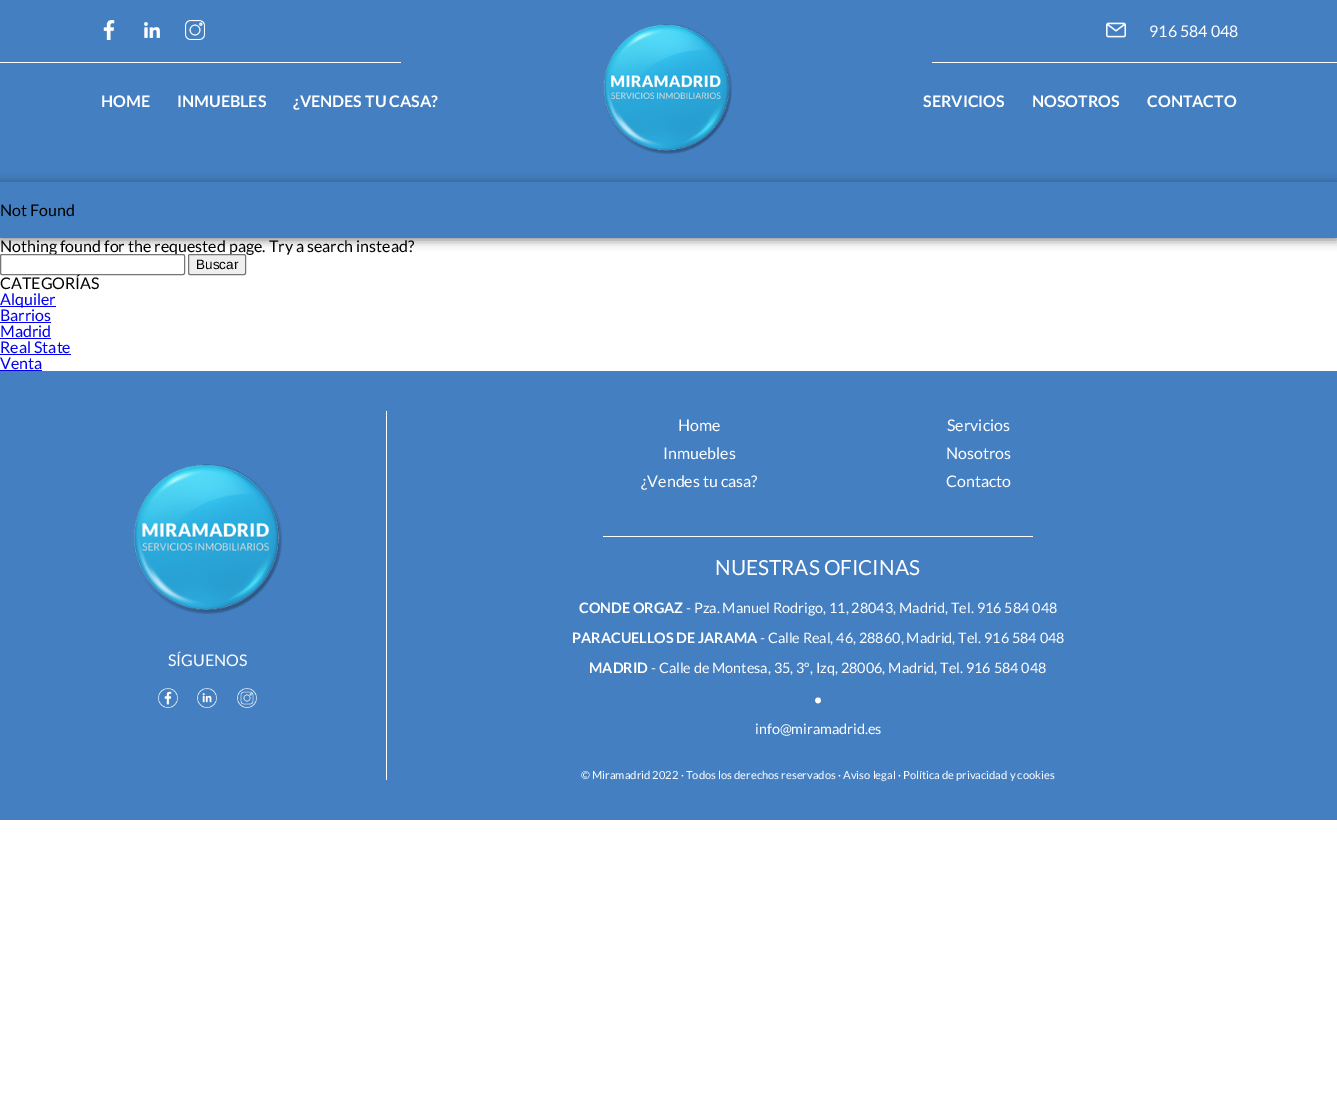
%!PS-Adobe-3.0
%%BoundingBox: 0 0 1337 1119
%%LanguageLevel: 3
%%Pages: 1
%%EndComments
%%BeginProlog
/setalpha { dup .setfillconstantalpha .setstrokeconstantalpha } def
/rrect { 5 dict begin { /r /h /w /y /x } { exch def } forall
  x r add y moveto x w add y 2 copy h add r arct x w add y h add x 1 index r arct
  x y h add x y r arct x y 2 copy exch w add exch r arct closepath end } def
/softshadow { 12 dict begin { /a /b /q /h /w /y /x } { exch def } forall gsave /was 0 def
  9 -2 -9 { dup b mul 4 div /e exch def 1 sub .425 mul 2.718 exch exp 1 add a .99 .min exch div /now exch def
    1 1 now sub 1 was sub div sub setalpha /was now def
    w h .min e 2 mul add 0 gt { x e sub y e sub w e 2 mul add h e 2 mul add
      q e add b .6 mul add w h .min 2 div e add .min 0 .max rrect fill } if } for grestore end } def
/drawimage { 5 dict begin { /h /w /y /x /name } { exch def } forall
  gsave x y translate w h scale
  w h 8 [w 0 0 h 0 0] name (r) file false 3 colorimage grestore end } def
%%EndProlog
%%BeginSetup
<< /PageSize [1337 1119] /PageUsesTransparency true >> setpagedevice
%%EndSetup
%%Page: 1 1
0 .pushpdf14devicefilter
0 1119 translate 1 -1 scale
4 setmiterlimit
1 setgray
0 0 1337 1119 rectfill
0.267 0.498 0.757 setrgbcolor
0 0 1337 182 rectfill
1 setgray
0 62 1337 1 rectfill
(images/1.raw) 103 20 12 20 drawimage
(images/2.raw) 144 22 16 16 drawimage
(images/3.raw) 185 20 20 20 drawimage
(images/4.raw) 1106 22 20 16 drawimage
0.267 0.498 0.757 setrgbcolor
401 62 531 1 rectfill
(images/5.raw) 603 24 129 130 drawimage
0 0 0.933 setrgbcolor
0 306 56 1 rectfill
0 322 51 1 rectfill
0 338 51 1 rectfill
0 354 71 1 rectfill
0 370 42 1 rectfill
0.267 0.498 0.757 setrgbcolor
0 371 1337 449 rectfill
1 setgray
386 411 1 369 rectfill
(images/6.raw) 133 464 149 150 drawimage
(images/7.raw) 158 688 20 20 drawimage
(images/8.raw) 197 688 20 20 drawimage
(images/9.raw) 237 688 20 20 drawimage
603 536 430 1 rectfill
/Lato-Regular [16 0 0 -16 0 0] selectfont
1149 37 moveto (916 584 048) show
/Lato-Bold [16 0 0 -16 0 0] selectfont
101 107 moveto (HOME) show
177 107 moveto (INMUEBLES) show
293 107 moveto (¿VENDES TU CASA?) show
923 107 moveto (SERVICIOS) show
1032 107 moveto (NOSOTROS) show
1147 107 moveto (CONTACTO) show
/Lato-Regular [16 0 0 -16 0 0] selectfont
0 setgray
0 252 moveto (Nothing found for the requested page. Try a search instead?) show
1 setgray
0.5 254.5 184 20 1.5 rrect gsave fill grestore
0.463 setgray
stroke
0.937 setgray
188.5 254.5 57 20 1.5 rrect gsave fill grestore
0.463 setgray
stroke
0 setgray
0 184 1337 56 0 5 0.5 softshadow
0.267 0.498 0.757 setrgbcolor
0 182 1337 56 rectfill
0 setgray
0 216 moveto (Not Found) show
/LiberationSans-Regular [13.5 0 0 -13.5 0 0] selectfont
196 269 moveto (Buscar) show
/Lato-Regular [16 0 0 -16 0 0] selectfont
0 289 moveto (CATEGORÍAS) show
0 0 0.933 setrgbcolor
0 305 moveto (Alquiler) show
0 321 moveto (Barrios) show
0 337 moveto (Madrid) show
0 353 moveto (Real State) show
0 369 moveto (Venta) show
1 setgray
168 666 moveto (SÍGUENOS) show
678 431 moveto (Home) show
663 459 moveto (Inmuebles) show
641 487 moveto (¿Vendes tu casa?) show
947 431 moveto (Servicios) show
946 459 moveto (Nosotros) show
946 487 moveto (Contacto) show
/Lato-Regular [20.75 0 0 -20.75 0 0] selectfont
715 575 moveto (NUESTRAS OFICINAS) show
/Lato-Bold [14.4 0 0 -14.4 0 0] selectfont
579 613 moveto (CONDE ORGAZ) show
/Lato-Regular [14.4 0 0 -14.4 0 0] selectfont
686 613 moveto (- Pza. Manuel Rodrigo, 11, 28043, Madrid, Tel. 916 584 048) show
/Lato-Bold [14.4 0 0 -14.4 0 0] selectfont
572 643 moveto (PARACUELLOS DE JARAMA) show
/Lato-Regular [14.4 0 0 -14.4 0 0] selectfont
760 643 moveto (- Calle Real, 46, 28860, Madrid, Tel. 916 584 048) show
/Lato-Bold [14.4 0 0 -14.4 0 0] selectfont
589 673 moveto (MADRID) show
/Lato-Regular [14.4 0 0 -14.4 0 0] selectfont
651 673 moveto (- Calle de Montesa, 35, 3º, Izq, 28006, Madrid, Tel. 916 584 048) show
/Lato-Regular [48 0 0 -48 0 0] selectfont
813 703 moveto (.) show
/Lato-Regular [14.4 0 0 -14.4 0 0] selectfont
755 734 moveto (info@miramadrid.es) show
/Lato-Regular [11.2 0 0 -11.2 0 0] selectfont
581 779 moveto (© Miramadrid 2022 · Todos los derechos reservados · Aviso legal · Política de privacidad y cookies) show
.poppdf14devicefilter showpage
%%EOF
